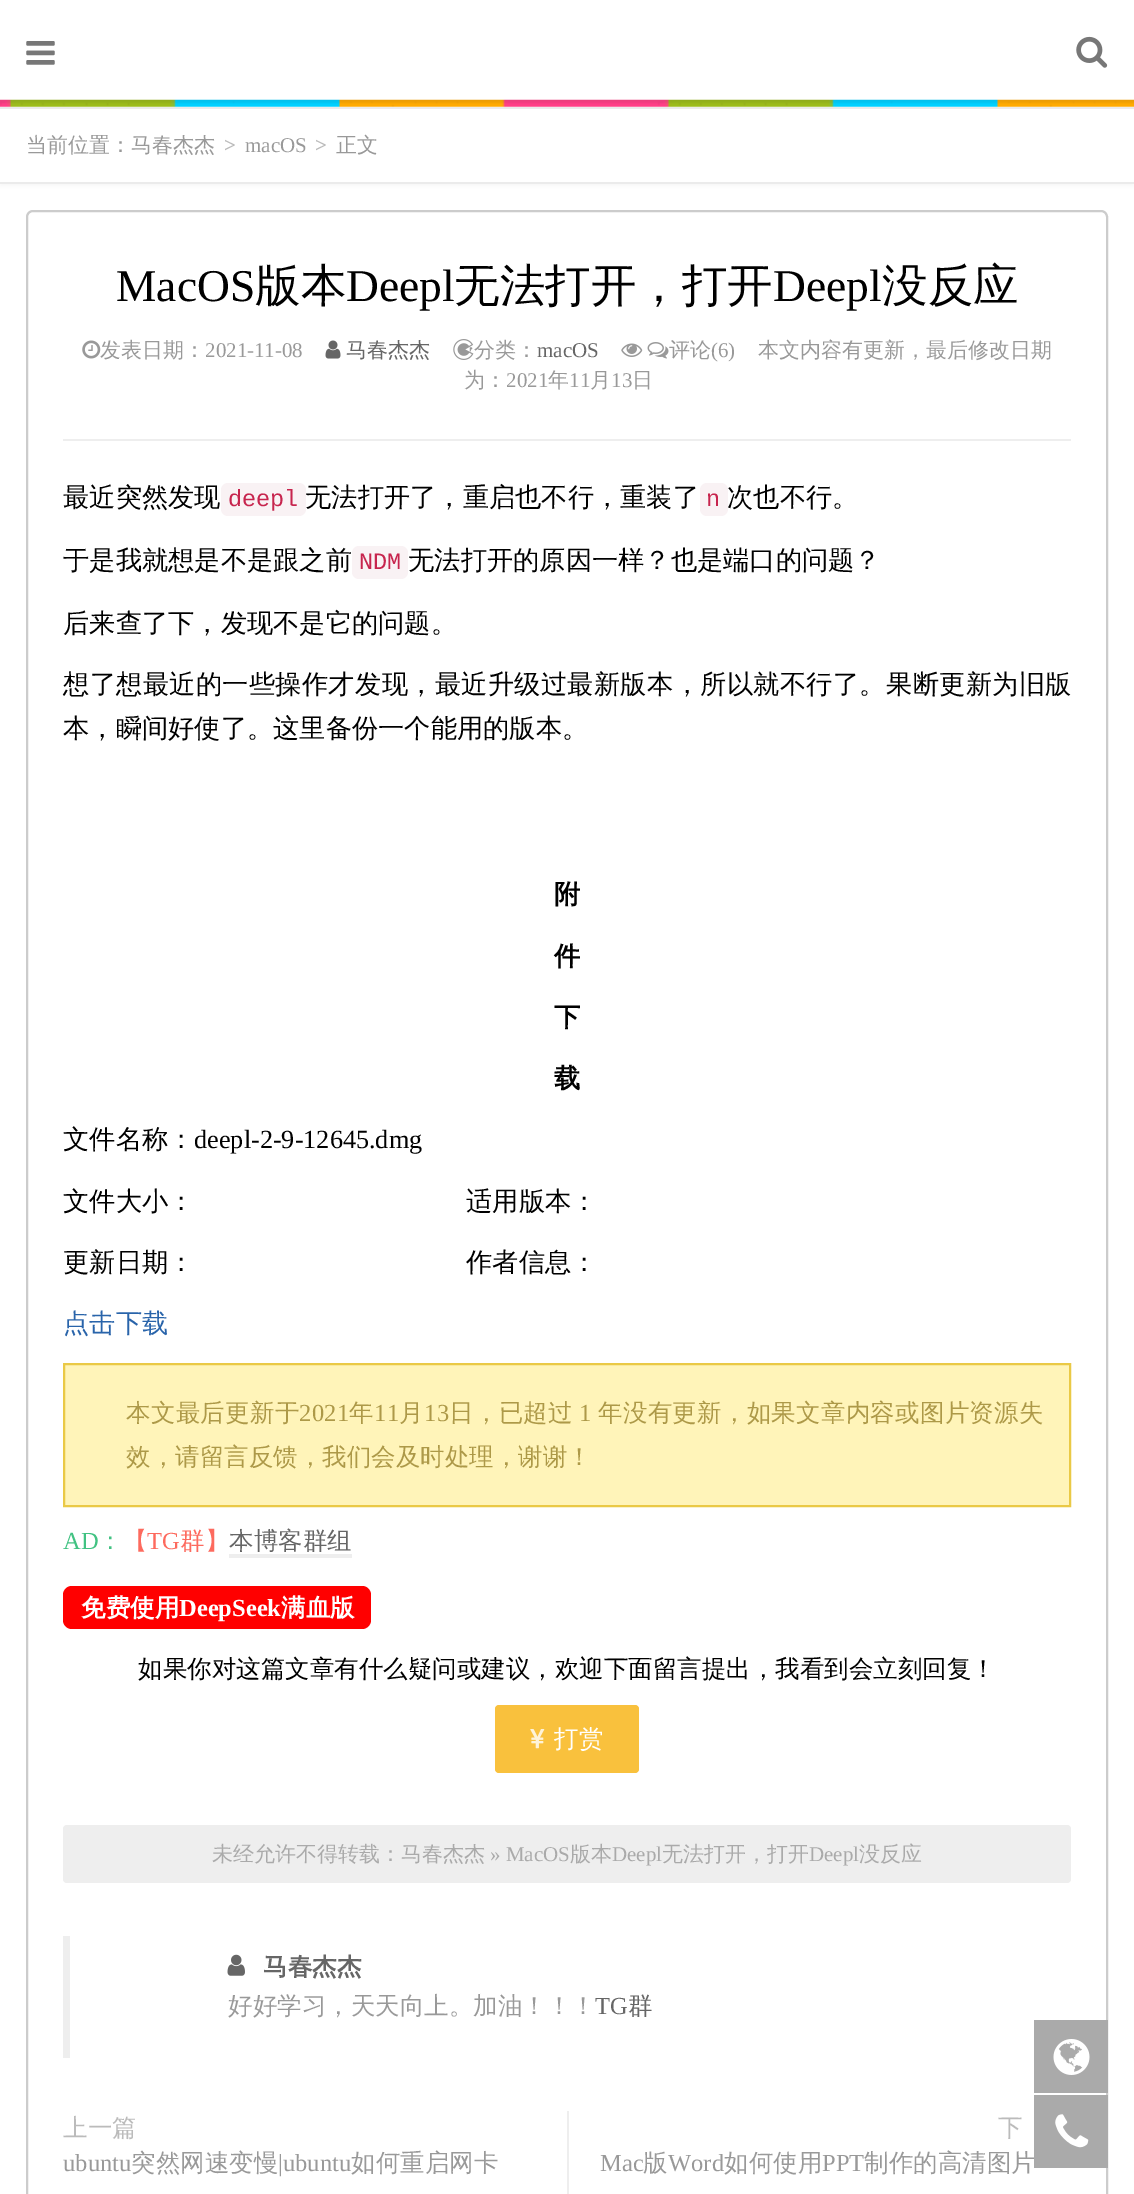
%!PS-Adobe-3.0
%%BoundingBox: 0 0 1134 2194
%%LanguageLevel: 3
%%Pages: 1
%%EndComments
%%BeginProlog
/setalpha { dup .setfillconstantalpha .setstrokeconstantalpha } def
/rrect { 5 dict begin { /r /h /w /y /x } { exch def } forall
  x r add y moveto x w add y 2 copy h add r arct x w add y h add x 1 index r arct
  x y h add x y r arct x y 2 copy exch w add exch r arct closepath end } def
/softshadow { 12 dict begin { /a /b /q /h /w /y /x } { exch def } forall gsave /was 0 def
  9 -2 -9 { dup b mul 4 div /e exch def 1 sub .425 mul 2.718 exch exp 1 add a .99 .min exch div /now exch def
    1 1 now sub 1 was sub div sub setalpha /was now def
    w h .min e 2 mul add 0 gt { x e sub y e sub w e 2 mul add h e 2 mul add
      q e add b .6 mul add w h .min 2 div e add .min 0 .max rrect fill } if } for grestore end } def
/drawimage { 5 dict begin { /h /w /y /x /name } { exch def } forall
  gsave x y translate w h scale
  w h 8 [w 0 0 h 0 0] name (r) file false 3 colorimage grestore end } def
%%EndProlog
%%BeginSetup
<< /PageSize [1134 2194] /PageUsesTransparency true >> setpagedevice
%%EndSetup
%%Page: 1 1
0 .pushpdf14devicefilter
0 2194 translate 1 -1 scale
4 setmiterlimit
1 setgray
0 0 1134 2194 rectfill
0 setgray
0 110 1134 76 0 2.5 0.04 softshadow
(images/1.raw) 0 99 1134 8 drawimage
0.922 setgray
0 107 1134 2 rectfill
(images/2.raw) 26 41 29 24 drawimage
(images/3.raw) 1076 36 32 32 drawimage
1 setgray
0 109 1134 73 rectfill
0.922 setgray
0 182 1134 2 rectfill
0.8 setgray
2 setlinewidth
27 211 1080 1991 6 rrect stroke
0.933 setgray
63 439 1008 2 rectfill
(images/4.raw) 82 340 19 19 drawimage
(images/5.raw) 325 340 16 19 drawimage
(images/6.raw) 453 339 21 21 drawimage
(images/7.raw) 621 343 22 14 drawimage
(images/8.raw) 647 342 22 17 drawimage
0.976 0.949 0.957 setrgbcolor
221 483 85 33 7 rrect fill
700 483 28 33 7 rrect fill
352 546 56 33 7 rrect fill
1 0.957 0.725 setrgbcolor
newpath 64 1364 moveto 1070 1364 lineto 1070 1506 lineto 64 1506 lineto closepath gsave fill grestore
0.918 0.788 0.275 setrgbcolor
stroke
0.933 setgray
229 1554 123 4 rectfill
1 0 0 setrgbcolor
63 1586 308 43 9 rrect fill
0.976 0.757 0.239 setrgbcolor
495 1705 144 68 4 rrect fill
(images/9.raw) 530 1729 15 20 drawimage
0.933 setgray
63 1825 1008 58 4 rrect fill
63 1936 7 122 rectfill
(images/10.raw) 227 1954 18 22 drawimage
567 2111 2 83 rectfill
0.667 setgray
1034 2020 74 73 rectfill
(images/11.raw) 1053 2039 37 36 drawimage
/WenQuanYiZenHei-Medium [21 0 0 -21 0 0] selectfont
0.6 setgray
26 152 moveto (当前位置：马春杰杰) show
/LiberationSerif-Bold [21 0 0 -21 0 0] selectfont
0.733 setgray
224 152 moveto (>) show
/LiberationSerif-Regular [21 0 0 -21 0 0] selectfont
0.6 setgray
245 152 moveto (macOS) show
/LiberationSerif-Bold [21 0 0 -21 0 0] selectfont
0.733 setgray
315 152 moveto (>) show
/WenQuanYiZenHei-Medium [21 0 0 -21 0 0] selectfont
0.6 setgray
336 152 moveto (正文) show
/LiberationSerif-Regular [45.5 0 0 -45.5 0 0] selectfont
0 setgray
116 301 moveto (MacOS) show
/WenQuanYiZenHei-Medium [45.5 0 0 -45.5 0 0] selectfont
255 301 moveto (版本) show
/LiberationSerif-Regular [45.5 0 0 -45.5 0 0] selectfont
346 301 moveto (Deepl) show
/WenQuanYiZenHei-Medium [45.5 0 0 -45.5 0 0] selectfont
454 301 moveto (无法打开，打开) show
/LiberationSerif-Regular [45.5 0 0 -45.5 0 0] selectfont
773 301 moveto (Deepl) show
/WenQuanYiZenHei-Medium [45.5 0 0 -45.5 0 0] selectfont
882 301 moveto (没反应) show
/WenQuanYiZenHei-Medium [21 0 0 -21 0 0] selectfont
0.6 setgray
100 357 moveto (发表日期：) show
/LiberationSerif-Regular [21 0 0 -21 0 0] selectfont
205 357 moveto (2021-11-08) show
/WenQuanYiZenHei-Medium [21 0 0 -21 0 0] selectfont
0.4 setgray
346 357 moveto (马春杰杰) show
0.6 setgray
474 357 moveto (分类：) show
/LiberationSerif-Regular [21 0 0 -21 0 0] selectfont
0.4 setgray
537 357 moveto (macOS) show
/WenQuanYiZenHei-Medium [21 0 0 -21 0 0] selectfont
0.6 setgray
669 357 moveto (评论) show
/LiberationSerif-Regular [21 0 0 -21 0 0] selectfont
711 357 moveto (\(6\)) show
/WenQuanYiZenHei-Medium [21 0 0 -21 0 0] selectfont
758 357 moveto (本文内容有更新，最后修改日期) show
464 387 moveto (为：) show
/LiberationSerif-Regular [21 0 0 -21 0 0] selectfont
506 387 moveto (2021) show
/WenQuanYiZenHei-Medium [21 0 0 -21 0 0] selectfont
548 387 moveto (年) show
/LiberationSerif-Regular [21 0 0 -21 0 0] selectfont
569 387 moveto (11) show
/WenQuanYiZenHei-Medium [21 0 0 -21 0 0] selectfont
590 387 moveto (月) show
/LiberationSerif-Regular [21 0 0 -21 0 0] selectfont
611 387 moveto (13) show
/WenQuanYiZenHei-Medium [21 0 0 -21 0 0] selectfont
632 387 moveto (日) show
/WenQuanYiZenHei-Medium [26.25 0 0 -26.25 0 0] selectfont
0 setgray
63 506 moveto (最近突然发现) show
/LiberationMono-Regular [23.5 0 0 -23.5 0 0] selectfont
0.78 0.145 0.306 setrgbcolor
228 506 moveto (deepl) show
/WenQuanYiZenHei-Medium [26.25 0 0 -26.25 0 0] selectfont
0 setgray
305 506 moveto (无法打开了，重启也不行，重装了) show
/LiberationMono-Regular [23.5 0 0 -23.5 0 0] selectfont
0.78 0.145 0.306 setrgbcolor
706 506 moveto (n) show
/WenQuanYiZenHei-Medium [26.25 0 0 -26.25 0 0] selectfont
0 setgray
727 506 moveto (次也不行。) show
63 569 moveto (于是我就想是不是跟之前) show
/LiberationMono-Regular [23.5 0 0 -23.5 0 0] selectfont
0.78 0.145 0.306 setrgbcolor
359 569 moveto (NDM) show
/WenQuanYiZenHei-Medium [26.25 0 0 -26.25 0 0] selectfont
0 setgray
408 569 moveto (无法打开的原因一样？也是端口的问题？) show
63 632 moveto (后来查了下，发现不是它的问题。) show
63 693 moveto 0.3 0 (想了想最近的一些操作才发现，最近升级过最新版本，所以就不行了。果断更新为旧版) ashow
63 737 moveto (本，瞬间好使了。这里备份一个能用的版本。) show
/WenQuanYiZenHei-Bold [26.25 0 0 -26.25 0 0] selectfont
554 903 moveto (附) show
554 965 moveto (件) show
554 1026 moveto (下) show
554 1087 moveto (载) show
/WenQuanYiZenHei-Medium [26.25 0 0 -26.25 0 0] selectfont
63 1148 moveto (文件名称：) show
/LiberationSerif-Regular [26.25 0 0 -26.25 0 0] selectfont
194 1148 moveto (deepl-2-9-12645.dmg) show
/WenQuanYiZenHei-Medium [26.25 0 0 -26.25 0 0] selectfont
63 1210 moveto (文件大小：) show
466 1210 moveto (适用版本：) show
63 1271 moveto (更新日期：) show
466 1271 moveto (作者信息：) show
0.161 0.392 0.667 setrgbcolor
63 1332 moveto (点击下载) show
/WenQuanYiZenHei-Medium [24.5 0 0 -24.5 0 0] selectfont
0.678 0.6 0.282 setrgbcolor
126 1421 moveto 0.25 0 (本文最后更新于) ashow
/LiberationSerif-Regular [24.5 0 0 -24.5 0 0] selectfont
299 1421 moveto 0.25 0 (2021) ashow
/WenQuanYiZenHei-Medium [24.5 0 0 -24.5 0 0] selectfont
349 1421 moveto 0.25 0 (年) ashow
/LiberationSerif-Regular [24.5 0 0 -24.5 0 0] selectfont
374 1421 moveto 0.25 0 (11) ashow
/WenQuanYiZenHei-Medium [24.5 0 0 -24.5 0 0] selectfont
399 1421 moveto 0.25 0 (月) ashow
/LiberationSerif-Regular [24.5 0 0 -24.5 0 0] selectfont
424 1421 moveto 0.25 0 (13) ashow
/WenQuanYiZenHei-Medium [24.5 0 0 -24.5 0 0] selectfont
449 1421 moveto 0.25 0 (日，已超过) ashow
/LiberationSerif-Regular [24.5 0 0 -24.5 0 0] selectfont
579 1421 moveto 0.25 0 (1) ashow
/WenQuanYiZenHei-Medium [24.5 0 0 -24.5 0 0] selectfont
598 1421 moveto 0.25 0 (年没有更新，如果文章内容或图片资源失) ashow
126 1465 moveto (效，请留言反馈，我们会及时处理，谢谢！) show
/LiberationSerif-Regular [24.5 0 0 -24.5 0 0] selectfont
0.255 0.761 0.51 setrgbcolor
63 1549 moveto (AD) show
/WenQuanYiZenHei-Medium [24.5 0 0 -24.5 0 0] selectfont
98 1549 moveto (：) show
0.992 0.416 0.369 setrgbcolor
123 1549 moveto (【) show
/LiberationSerif-Regular [24.5 0 0 -24.5 0 0] selectfont
147 1549 moveto (TG) show
/WenQuanYiZenHei-Medium [24.5 0 0 -24.5 0 0] selectfont
180 1549 moveto (群】) show
0.4 setgray
229 1549 moveto (本博客群组) show
/WenQuanYiZenHei-Bold [24.5 0 0 -24.5 0 0] selectfont
1 setgray
81 1616 moveto (免费使用) show
/LiberationSerif-Bold [24.5 0 0 -24.5 0 0] selectfont
179 1616 moveto (DeepSeek) show
/WenQuanYiZenHei-Bold [24.5 0 0 -24.5 0 0] selectfont
281 1616 moveto (满血版) show
/WenQuanYiZenHei-Medium [24.5 0 0 -24.5 0 0] selectfont
0 setgray
138 1677 moveto (如果你对这篇文章有什么疑问或建议，欢迎下面留言提出，我看到会立刻回复！) show
1 setgray
554 1747 moveto (打赏) show
/WenQuanYiZenHei-Medium [21 0 0 -21 0 0] selectfont
0.667 setgray
212 1861 moveto (未经允许不得转载：马春杰杰) show
/LiberationSerif-Regular [21 0 0 -21 0 0] selectfont
490 1861 moveto (» MacOS) show
/WenQuanYiZenHei-Medium [21 0 0 -21 0 0] selectfont
570 1861 moveto (版本) show
/LiberationSerif-Regular [21 0 0 -21 0 0] selectfont
612 1861 moveto (Deepl) show
/WenQuanYiZenHei-Medium [21 0 0 -21 0 0] selectfont
662 1861 moveto (无法打开，打开) show
/LiberationSerif-Regular [21 0 0 -21 0 0] selectfont
809 1861 moveto (Deepl) show
/WenQuanYiZenHei-Medium [21 0 0 -21 0 0] selectfont
859 1861 moveto (没反应) show
/WenQuanYiZenHei-Bold [24.5 0 0 -24.5 0 0] selectfont
0.4 setgray
263 1975 moveto (马春杰杰) show
/WenQuanYiZenHei-Medium [24.5 0 0 -24.5 0 0] selectfont
0.6 setgray
228 2014 moveto (好好学习，天天向上。加油！！！) show
/LiberationSerif-Regular [24.5 0 0 -24.5 0 0] selectfont
0.4 setgray
595 2014 moveto (TG) show
/WenQuanYiZenHei-Medium [24.5 0 0 -24.5 0 0] selectfont
628 2014 moveto (群) show
0.733 setgray
63 2136 moveto (上一篇) show
/LiberationSerif-Regular [24.5 0 0 -24.5 0 0] selectfont
0.6 setgray
63 2171 moveto (ubuntu) show
/WenQuanYiZenHei-Medium [24.5 0 0 -24.5 0 0] selectfont
131 2171 moveto (突然网速变慢) show
/LiberationSerif-Regular [24.5 0 0 -24.5 0 0] selectfont
278 2171 moveto (|ubuntu) show
/WenQuanYiZenHei-Medium [24.5 0 0 -24.5 0 0] selectfont
351 2171 moveto (如何重启网卡) show
0.733 setgray
998 2136 moveto (下) show
/LiberationSerif-Regular [24.5 0 0 -24.5 0 0] selectfont
0.6 setgray
600 2171 moveto (Mac) show
/WenQuanYiZenHei-Medium [24.5 0 0 -24.5 0 0] selectfont
643 2171 moveto (版) show
/LiberationSerif-Regular [24.5 0 0 -24.5 0 0] selectfont
668 2171 moveto (Word) show
/WenQuanYiZenHei-Medium [24.5 0 0 -24.5 0 0] selectfont
724 2171 moveto (如何使用) show
/LiberationSerif-Regular [24.5 0 0 -24.5 0 0] selectfont
822 2171 moveto (PPT) show
/WenQuanYiZenHei-Medium [24.5 0 0 -24.5 0 0] selectfont
864 2171 moveto (制作的高清图片) show
0.667 setgray
1034 2095 74 73 rectfill
(images/12.raw) 1055 2114 34 34 drawimage
.poppdf14devicefilter showpage
%%EOF
